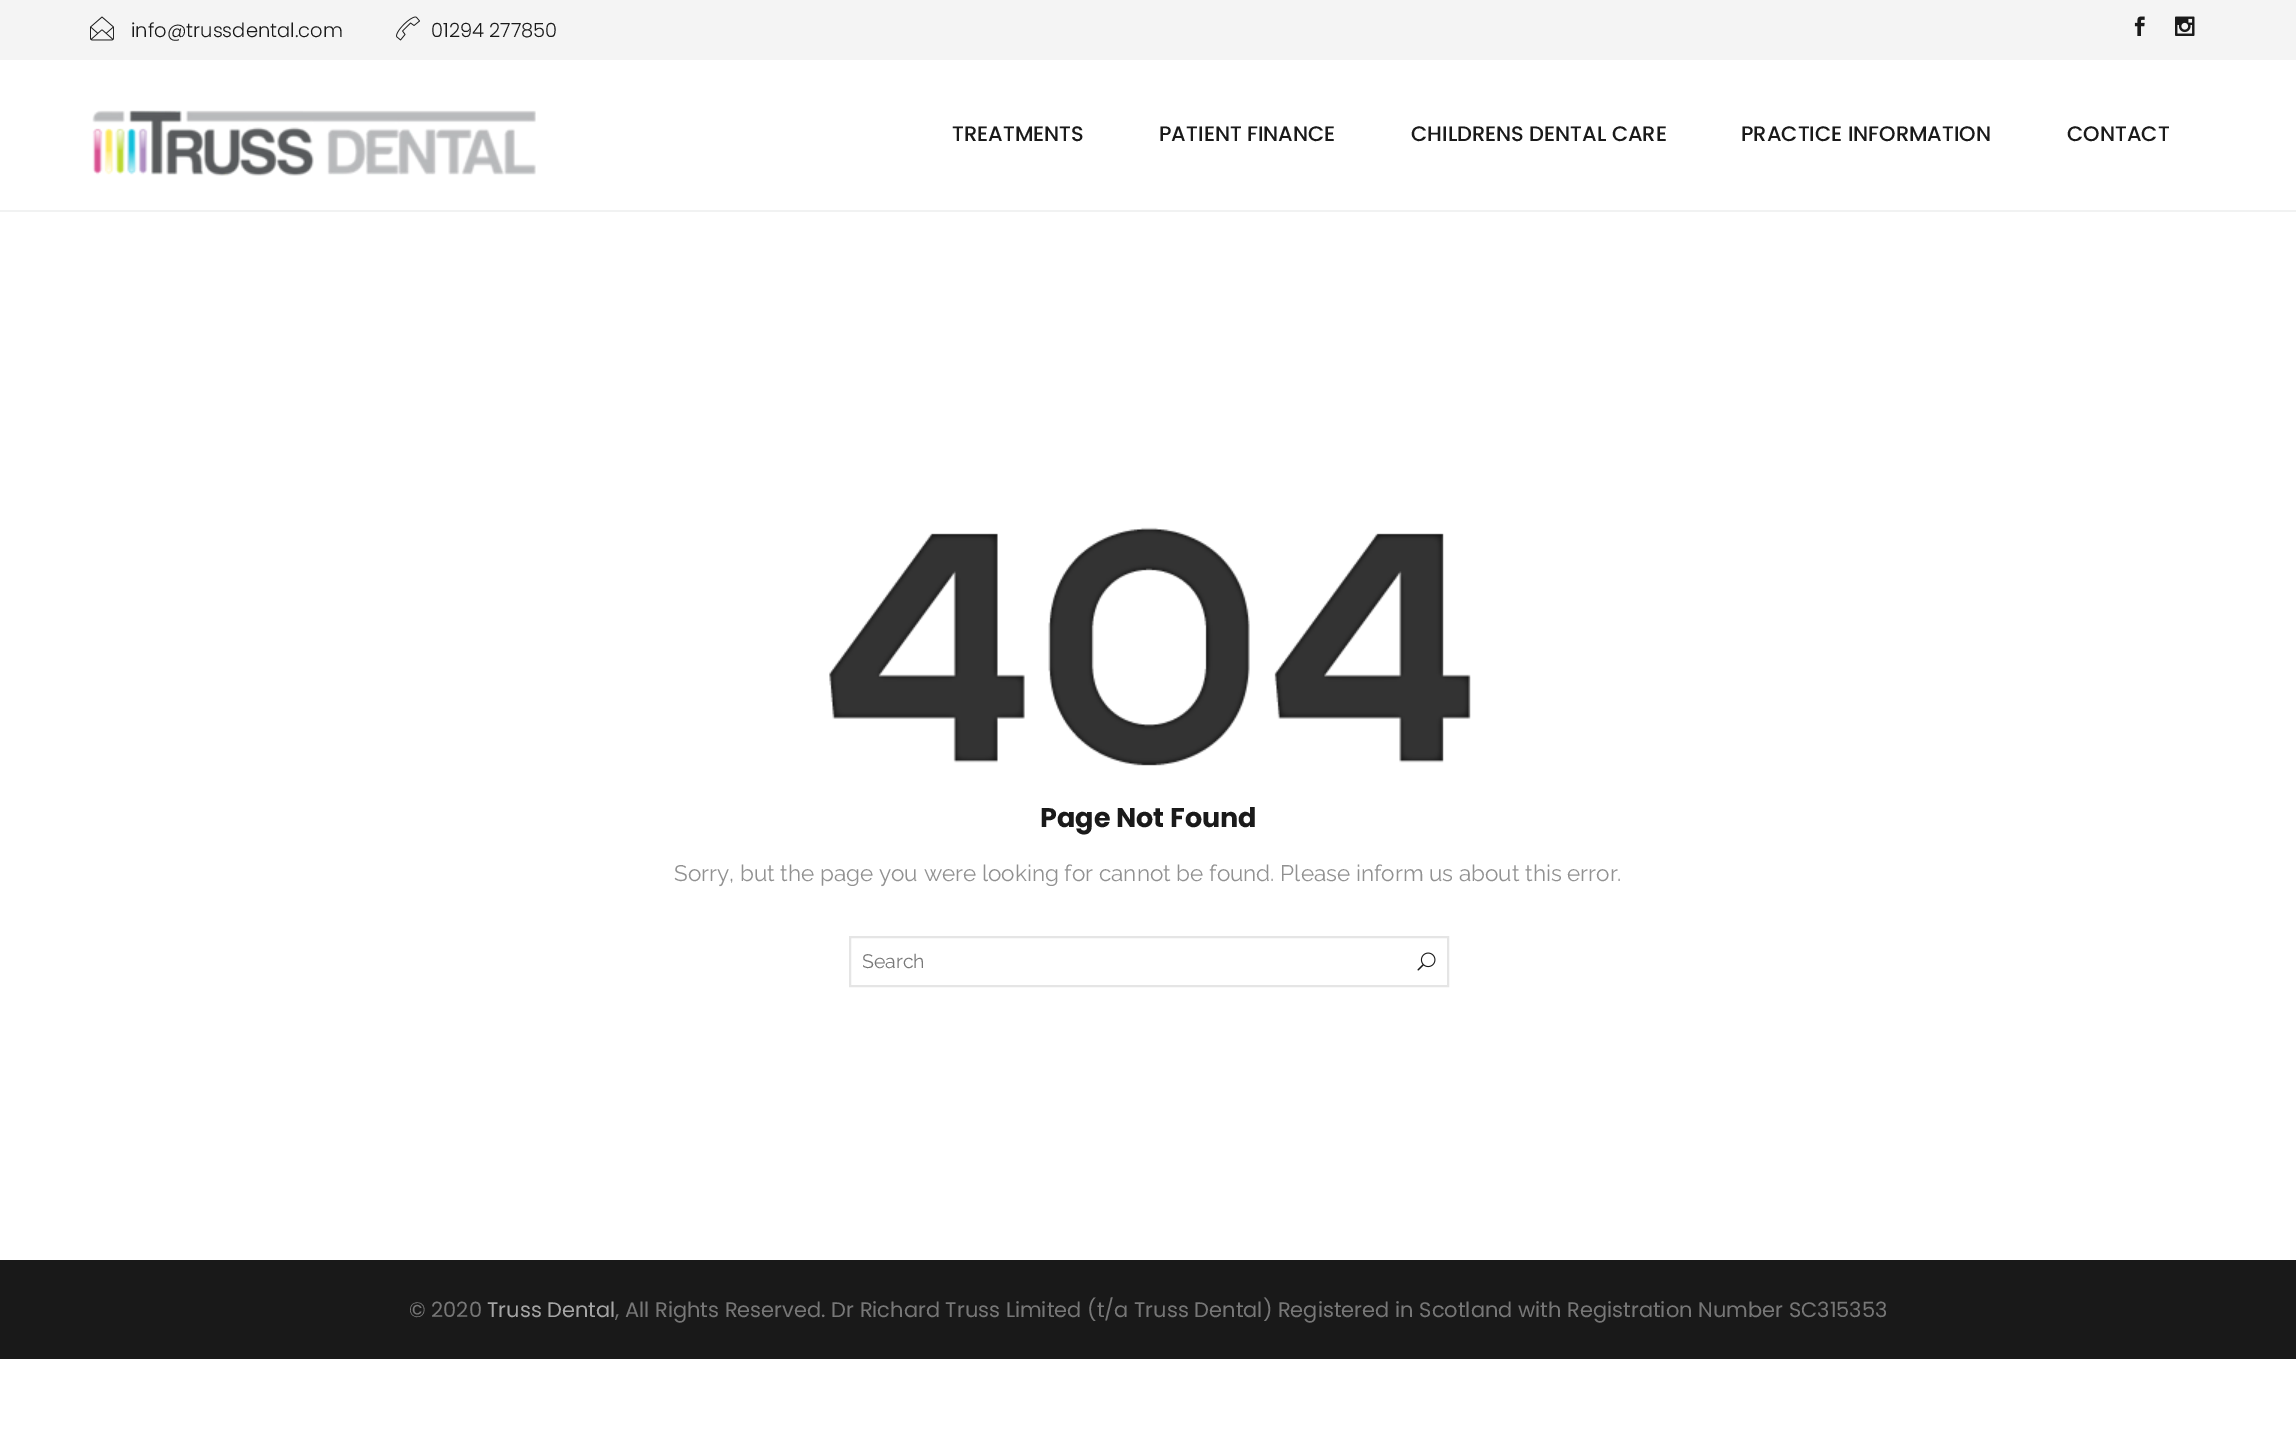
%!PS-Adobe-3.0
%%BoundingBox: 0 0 2296 1430
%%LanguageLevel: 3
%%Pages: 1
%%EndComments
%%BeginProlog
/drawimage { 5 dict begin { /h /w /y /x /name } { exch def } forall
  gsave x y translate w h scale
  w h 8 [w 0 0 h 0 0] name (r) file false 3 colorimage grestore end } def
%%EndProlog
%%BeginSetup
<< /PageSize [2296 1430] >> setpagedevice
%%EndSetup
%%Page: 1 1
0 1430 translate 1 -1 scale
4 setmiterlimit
1 setgray
0 0 2296 1430 rectfill
0.957 setgray
0 0 2296 60 rectfill
(images/1.raw) 90 16 24 25 drawimage
(images/2.raw) 396 16 24 25 drawimage
(images/3.raw) 2134 16 11 20 drawimage
(images/4.raw) 2175 16 20 20 drawimage
0.945 0.949 0.949 setrgbcolor
0 210 2296 2 rectfill
(images/5.raw) 92 110 444 66 drawimage
(images/6.raw) 829 527 642 239 drawimage
0.898 setgray
2 setlinewidth
850 937 598 49 rectstroke
(images/7.raw) 1417 952 19 19 drawimage
0.098 setgray
0 1260 2296 99 rectfill
/Poppins-Light [19.5 0 0 -19.5 0 0] selectfont
0.102 setgray
131 37 moveto (info@trussdental.com) show
431 37 moveto (01294 277850) show
/Poppins-Medium [21 0 0 -21 0 0] selectfont
952 141 moveto (TREATMENTS) show
1159 141 moveto (PATIENT FINANCE) show
1411 141 moveto (CHILDRENS DENTAL CARE) show
1741 141 moveto (PRACTICE INFORMATION) show
2067 141 moveto (CONTACT) show
/Poppins-Bold [27 0 0 -27 0 0] selectfont
1040 827 moveto (Page Not Found) show
/Raleway-Regular [22.5 0 0 -22.5 0 0] selectfont
0.569 setgray
674 881 moveto (Sorry, but the page you were looking for cannot be found. Please inform us about this error.) show
gsave
863 950 540 22 rectclip
/Raleway-Regular [19.5 0 0 -19.5 0 0] selectfont
0.467 setgray
862 968 moveto (Search) show
grestore
/Poppins-Regular [21 0 0 -21 0 0] selectfont
0.467 setgray
409 1317 moveto (© 2020) show
0.647 setgray
487 1317 moveto (Truss Dental) show
0.467 setgray
615 1317 moveto (, All Rights Reserved. Dr Richard Truss Limited \(t/a Truss Dental\) Registered in Scotland with Registration Number SC315353) show
showpage
%%EOF
